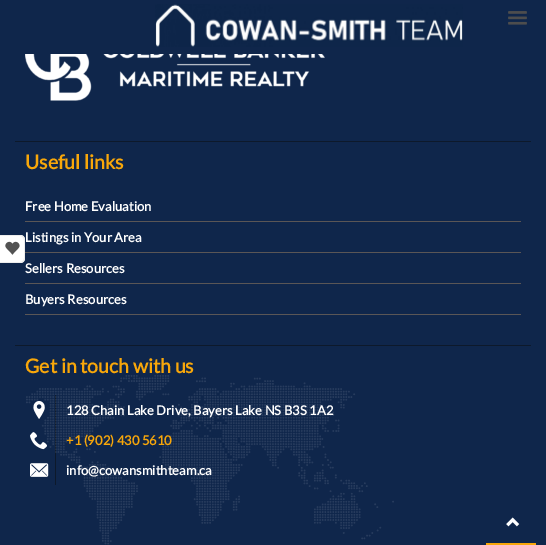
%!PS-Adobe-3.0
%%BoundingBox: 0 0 546 545
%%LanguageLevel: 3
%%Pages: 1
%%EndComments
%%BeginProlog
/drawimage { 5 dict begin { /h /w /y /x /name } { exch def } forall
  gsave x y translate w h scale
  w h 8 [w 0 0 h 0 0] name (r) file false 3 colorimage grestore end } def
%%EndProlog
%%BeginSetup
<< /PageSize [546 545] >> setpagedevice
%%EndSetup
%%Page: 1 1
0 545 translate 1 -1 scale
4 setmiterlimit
0.059 0.149 0.294 setrgbcolor
0 0 546 545 rectfill
(images/1.raw) 155 4 308 43 drawimage
(images/2.raw) 508 11 19 14 drawimage
1 setgray
newpath 0 235 moveto 20 235 lineto 23 235 25 237 25 240 curveto 25 258 lineto 25 261 23 263 20 263 curveto 0 263 lineto closepath fill
0.929 setgray
newpath 0 235 moveto 20 235 lineto 23 235 25 237 25 240 curveto 25 258 lineto 25 261 23 263 20 263 curveto 0 263 lineto closepath 0 236 moveto 20 236 lineto 22 236 24 238 24 240 curveto 24 258 lineto 24 260 22 262 20 262 curveto 0 262 lineto closepath eofill
(images/3.raw) 5 241 15 14 drawimage
(images/4.raw) 25 54 300 47 drawimage
0.051 0.098 0.169 setrgbcolor
15 141 516 1 rectfill
0.353 0.337 0.337 setrgbcolor
25 221 496 1 rectfill
25 252 496 1 rectfill
25 283 496 1 rectfill
25 314 496 1 rectfill
0.051 0.098 0.169 setrgbcolor
15 345 516 1 rectfill
55 395 1 90 rectfill
(images/5.raw) 26 375 368 170 drawimage
(images/6.raw) 33 401 12 18 drawimage
(images/7.raw) 30 432 17 18 drawimage
(images/8.raw) 30 463 19 14 drawimage
0.973 0.655 0.039 setrgbcolor
486 543 50 2 rectfill
(images/9.raw) 506 517 14 10 drawimage
/Lato-Bold [19.5 0 0 -19.5 0 0] selectfont
25 169 moveto (Useful links) show
/Lato-Bold [13 0 0 -13 0 0] selectfont
1 setgray
25 211 moveto (Free Home Evaluation) show
25 242 moveto (Listings in Your Area) show
25 273 moveto (Sellers Resources) show
25 304 moveto (Buyers Resources) show
/Lato-Bold [19.5 0 0 -19.5 0 0] selectfont
0.973 0.655 0.039 setrgbcolor
25 373 moveto (Get in touch with us) show
/Lato-Bold [13 0 0 -13 0 0] selectfont
1 setgray
66 415 moveto (128 Chain Lake Drive, Bayers Lake NS B3S 1A2) show
0.973 0.655 0.039 setrgbcolor
66 445 moveto (+1 \(902\) 430 5610) show
1 setgray
66 475 moveto (info@cowansmithteam.ca) show
showpage
%%EOF
